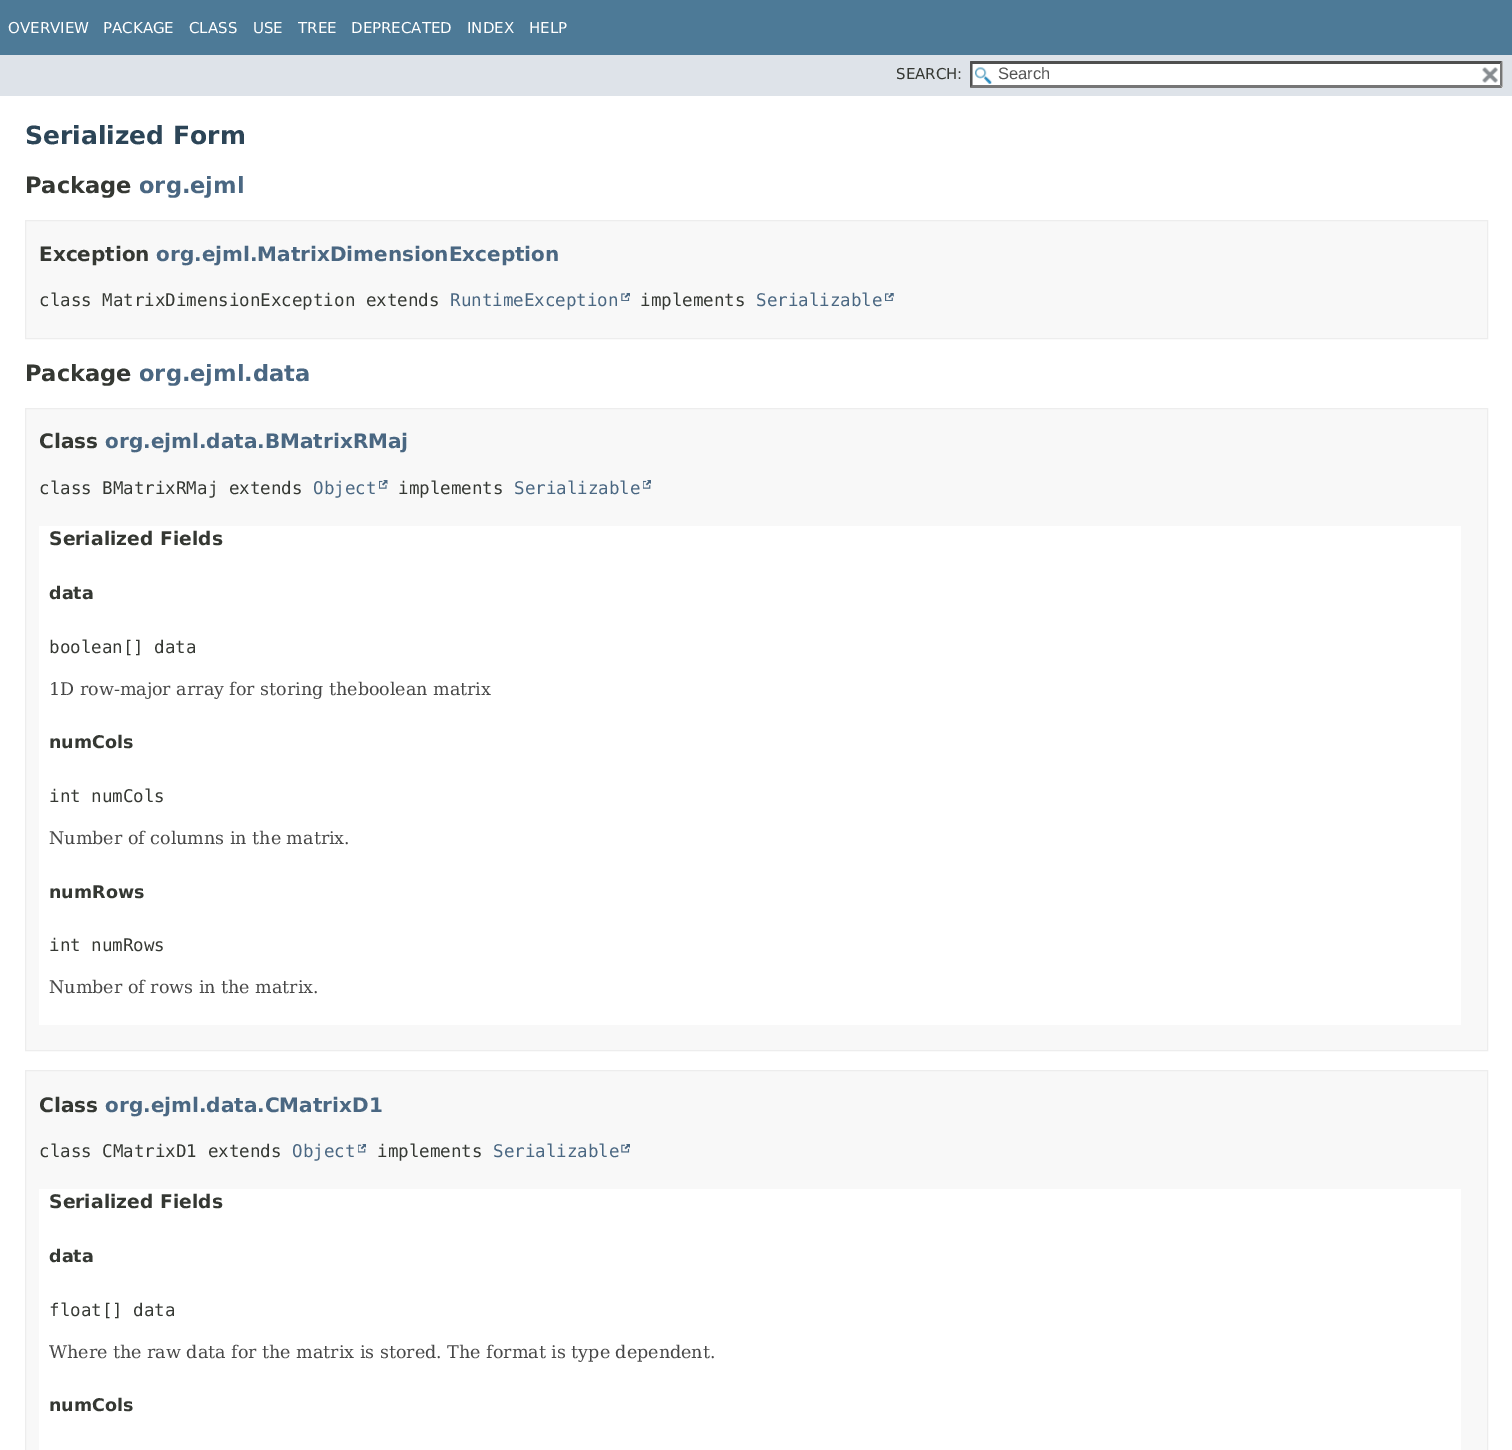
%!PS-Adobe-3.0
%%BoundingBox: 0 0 1512 1450
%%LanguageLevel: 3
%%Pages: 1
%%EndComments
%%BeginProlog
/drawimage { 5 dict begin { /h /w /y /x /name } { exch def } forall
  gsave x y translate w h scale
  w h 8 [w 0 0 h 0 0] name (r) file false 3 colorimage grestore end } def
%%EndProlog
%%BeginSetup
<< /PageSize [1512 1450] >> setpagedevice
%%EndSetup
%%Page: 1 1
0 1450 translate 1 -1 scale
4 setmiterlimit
1 setgray
0 0 1512 1450 rectfill
0.302 0.478 0.592 setrgbcolor
0 0 1512 55 rectfill
0.871 0.89 0.914 setrgbcolor
0 55 1512 41 rectfill
1 setgray
970 61 533 27 rectfill
(images/1.raw) 975 67 17 17 drawimage
0.31 setgray
newpath 970 61 moveto 1502 61 lineto 1500 64 lineto 972 64 lineto closepath fill
0.463 setgray
newpath 1502.5 61 moveto 1502.5 87.5 lineto 1500 85 lineto 1500 64 lineto closepath fill
newpath 1502 88 moveto 970 88 lineto 972 85 lineto 1500 85 lineto closepath fill
0.31 setgray
newpath 970 87.5 moveto 970 61 lineto 972.5 64 lineto 972.5 85 lineto closepath fill
(images/2.raw) 1482 67 16 16 drawimage
0.973 setgray
newpath 25.5 220.5 moveto 1487.5 220.5 lineto 1487.5 338.5 lineto 25.5 338.5 lineto closepath gsave fill grestore
0.929 setgray
stroke
(images/3.raw) 621 293 9 8 drawimage
(images/4.raw) 885 293 9 8 drawimage
0.973 setgray
newpath 25.5 408.5 moveto 1487.5 408.5 lineto 1487.5 1050.5 lineto 25.5 1050.5 lineto closepath gsave fill grestore
0.929 setgray
stroke
(images/5.raw) 379 480 9 9 drawimage
(images/6.raw) 643 480 8 9 drawimage
1 setgray
39 526 1422 499 rectfill
0.973 setgray
newpath 25.5 1070.5 moveto 1487.5 1070.5 lineto 1487.5 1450.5 lineto 25.5 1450.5 lineto closepath gsave fill grestore
0.929 setgray
stroke
(images/7.raw) 358 1144 8 9 drawimage
(images/8.raw) 621 1144 9 9 drawimage
1 setgray
39 1189 1422 261 rectfill
/DejaVuSans-Regular [15 0 0 -15 0 0] selectfont
8 33 moveto (OVERVIEW) show
103 33 moveto (PACKAGE) show
189 33 moveto (CLASS) show
253 33 moveto (USE) show
298 33 moveto (TREE) show
351 33 moveto (DEPRECATED) show
467 33 moveto (INDEX) show
529 33 moveto (HELP) show
0.208 0.22 0.2 setrgbcolor
896 79 moveto (SEARCH:) show
/LiberationSans-Regular [16.5 0 0 -16.5 0 0] selectfont
0.329 setgray
998 79 moveto (Search) show
/DejaVuSans-Bold [25 0 0 -25 0 0] selectfont
0.173 0.271 0.341 setrgbcolor
25 144 moveto (Serialized Form) show
/DejaVuSans-Bold [22.5 0 0 -22.5 0 0] selectfont
0.208 0.22 0.2 setrgbcolor
25 193 moveto (Package) show
0.29 0.404 0.51 setrgbcolor
139 193 moveto (org.ejml) show
/DejaVuSans-Bold [20 0 0 -20 0 0] selectfont
0.208 0.22 0.2 setrgbcolor
39 261 moveto (Exception) show
0.29 0.404 0.51 setrgbcolor
156 261 moveto (org.ejml.MatrixDimensionException) show
/DejaVuSansMono-Regular [17.5 0 0 -17.5 0 0] selectfont
0.208 0.22 0.2 setrgbcolor
39 306 moveto (class MatrixDimensionException extends) show
0.29 0.404 0.51 setrgbcolor
450 306 moveto (RuntimeException) show
0.208 0.22 0.2 setrgbcolor
640 306 moveto (implements) show
0.29 0.404 0.51 setrgbcolor
756 306 moveto (Serializable) show
/DejaVuSans-Bold [22.5 0 0 -22.5 0 0] selectfont
0.208 0.22 0.2 setrgbcolor
25 381 moveto (Package) show
0.29 0.404 0.51 setrgbcolor
139 381 moveto (org.ejml.data) show
/DejaVuSans-Bold [20 0 0 -20 0 0] selectfont
0.208 0.22 0.2 setrgbcolor
39 448 moveto (Class) show
0.29 0.404 0.51 setrgbcolor
105 448 moveto (org.ejml.data.BMatrixRMaj) show
/DejaVuSansMono-Regular [17.5 0 0 -17.5 0 0] selectfont
0.208 0.22 0.2 setrgbcolor
39 494 moveto (class BMatrixRMaj extends) show
0.29 0.404 0.51 setrgbcolor
313 494 moveto (Object) show
0.208 0.22 0.2 setrgbcolor
398 494 moveto (implements) show
0.29 0.404 0.51 setrgbcolor
514 494 moveto (Serializable) show
/DejaVuSans-Bold [18.75 0 0 -18.75 0 0] selectfont
0.208 0.22 0.2 setrgbcolor
49 545 moveto (Serialized Fields) show
/DejaVuSans-Bold [17.5 0 0 -17.5 0 0] selectfont
49 599 moveto (data) show
/DejaVuSansMono-Regular [17.5 0 0 -17.5 0 0] selectfont
49 653 moveto (boolean[] data) show
/DejaVuSerif-Regular [17.5 0 0 -17.5 0 0] selectfont
0.278 setgray
49 695 moveto (1D row-major array for storing theboolean matrix) show
/DejaVuSans-Bold [17.5 0 0 -17.5 0 0] selectfont
0.208 0.22 0.2 setrgbcolor
49 748 moveto (numCols) show
/DejaVuSansMono-Regular [17.5 0 0 -17.5 0 0] selectfont
49 802 moveto (int numCols) show
/DejaVuSerif-Regular [17.5 0 0 -17.5 0 0] selectfont
0.278 setgray
49 844 moveto (Number of columns in the matrix.) show
/DejaVuSans-Bold [17.5 0 0 -17.5 0 0] selectfont
0.208 0.22 0.2 setrgbcolor
49 898 moveto (numRows) show
/DejaVuSansMono-Regular [17.5 0 0 -17.5 0 0] selectfont
49 951 moveto (int numRows) show
/DejaVuSerif-Regular [17.5 0 0 -17.5 0 0] selectfont
0.278 setgray
49 993 moveto (Number of rows in the matrix.) show
/DejaVuSans-Bold [20 0 0 -20 0 0] selectfont
0.208 0.22 0.2 setrgbcolor
39 1112 moveto (Class) show
0.29 0.404 0.51 setrgbcolor
105 1112 moveto (org.ejml.data.CMatrixD1) show
/DejaVuSansMono-Regular [17.5 0 0 -17.5 0 0] selectfont
0.208 0.22 0.2 setrgbcolor
39 1157 moveto (class CMatrixD1 extends) show
0.29 0.404 0.51 setrgbcolor
292 1157 moveto (Object) show
0.208 0.22 0.2 setrgbcolor
377 1157 moveto (implements) show
0.29 0.404 0.51 setrgbcolor
493 1157 moveto (Serializable) show
/DejaVuSans-Bold [18.75 0 0 -18.75 0 0] selectfont
0.208 0.22 0.2 setrgbcolor
49 1208 moveto (Serialized Fields) show
/DejaVuSans-Bold [17.5 0 0 -17.5 0 0] selectfont
49 1262 moveto (data) show
/DejaVuSansMono-Regular [17.5 0 0 -17.5 0 0] selectfont
49 1316 moveto (float[] data) show
/DejaVuSerif-Regular [17.5 0 0 -17.5 0 0] selectfont
0.278 setgray
49 1358 moveto (Where the raw data for the matrix is stored. The format is type dependent.) show
/DejaVuSans-Bold [17.5 0 0 -17.5 0 0] selectfont
0.208 0.22 0.2 setrgbcolor
49 1411 moveto (numCols) show
showpage
%%EOF
